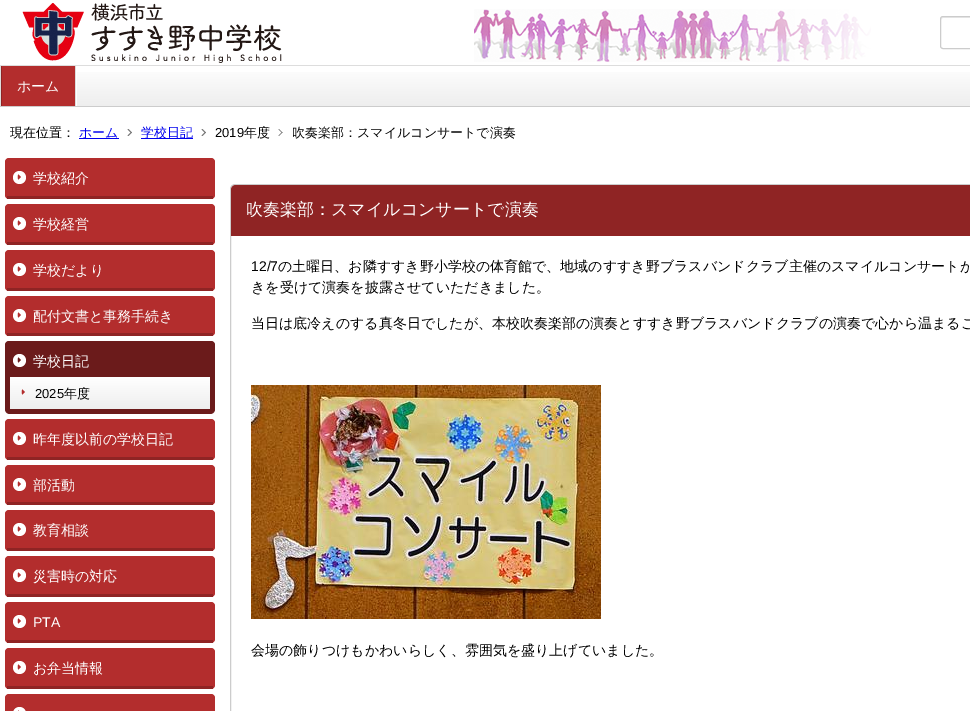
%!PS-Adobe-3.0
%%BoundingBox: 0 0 970 711
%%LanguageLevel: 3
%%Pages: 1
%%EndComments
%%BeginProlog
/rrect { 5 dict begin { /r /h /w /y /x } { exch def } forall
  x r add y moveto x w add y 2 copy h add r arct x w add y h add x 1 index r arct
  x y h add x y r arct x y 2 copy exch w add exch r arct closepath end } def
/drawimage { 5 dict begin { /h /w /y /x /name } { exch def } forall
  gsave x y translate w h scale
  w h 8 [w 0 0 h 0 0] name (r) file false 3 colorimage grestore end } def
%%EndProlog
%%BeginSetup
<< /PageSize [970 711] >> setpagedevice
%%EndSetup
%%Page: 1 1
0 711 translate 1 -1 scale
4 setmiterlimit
1 setgray
0 0 970 711 rectfill
(images/1.raw) 474 9 397 53 drawimage
(images/2.raw) 22 3 260 60 drawimage
0.925 setgray
newpath 943 18 moveto 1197 18 lineto 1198 18 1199 19 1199 20 curveto 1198 17 lineto 943 17 lineto 941 17 941 19 941 20 curveto 941 19 942 18 943 18 curveto closepath fill
0.8 setgray
940.5 16.5 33 32 2.5 rrect stroke
gsave newpath 77 72 moveto 970 72 lineto 970 106 lineto 77 106 lineto closepath clip newpath
<< /ShadingType 2 /ColorSpace /DeviceRGB /Coords [600 66 600 106] /Extend [true true] /Function << /FunctionType 2 /Domain [0 1] /C0 [1 1 1] /C1 [0.933 0.933 0.933] /N 1 >> >> shfill grestore
0.867 setgray
0 65 970 1 rectfill
0.8 setgray
0 106 970 1 rectfill
0.867 setgray
0 66 1 40 rectfill
0.702 0.176 0.176 setrgbcolor
2 66 73 40 rectfill
0.867 setgray
75 66 1 40 rectfill
0.561 0.141 0.141 setrgbcolor
1 66 1 40 rectfill
0 0 0.933 setrgbcolor
79 138 40 1 rectfill
0.467 setgray
newpath 128.5 129 moveto 132 132.5 lineto 131 133 lineto 127.5 129.5 lineto closepath fill
newpath 131 132 moveto 132 132.5 lineto 128.5 136 lineto 127.5 135.5 lineto closepath fill
0 0 0.933 setrgbcolor
141 138 52 1 rectfill
0.467 setgray
newpath 202.5 129 moveto 206 132.5 lineto 205 133 lineto 201.5 129.5 lineto closepath fill
newpath 205 132 moveto 206 132.5 lineto 202.5 136 lineto 201.5 135.5 lineto closepath fill
newpath 279 129 moveto 282.5 132.5 lineto 282 133 lineto 278.5 129.5 lineto closepath fill
newpath 282 132 moveto 282.5 132.5 lineto 279 136 lineto 278.5 135.5 lineto closepath fill
0.702 0.176 0.176 setrgbcolor
5 158 210 41 4 rrect fill
0.561 0.141 0.141 setrgbcolor
7 196 206 3 rectfill
1 setgray
newpath 19.5 177.5 6.5 0 360 arc closepath fill
0.702 0.176 0.176 setrgbcolor
newpath 21 177 moveto 18.5 179.5 lineto 17.5 179 17.5 175 18.5 174.5 curveto closepath fill
5 204 210 41 4 rrect fill
0.561 0.141 0.141 setrgbcolor
7 242 206 3 rectfill
1 setgray
newpath 19.5 223.5 6.5 0 360 arc closepath fill
0.702 0.176 0.176 setrgbcolor
newpath 21 223 moveto 18.5 225.5 lineto 17.5 225 17.5 221 18.5 220.5 curveto closepath fill
5 250 210 41 4 rrect fill
0.561 0.141 0.141 setrgbcolor
7 288 206 3 rectfill
1 setgray
newpath 19.5 269.5 6.5 0 360 arc closepath fill
0.702 0.176 0.176 setrgbcolor
newpath 21 269 moveto 18.5 271.5 lineto 17.5 271 17.5 267 18.5 266.5 curveto closepath fill
5 296 210 40 4 rrect fill
0.561 0.141 0.141 setrgbcolor
7 333 206 3 rectfill
1 setgray
newpath 19.5 315.5 6.5 0 360 arc closepath fill
0.702 0.176 0.176 setrgbcolor
newpath 21 315 moveto 18.5 317.5 lineto 17.5 317 17.5 313 18.5 312.5 curveto closepath fill
0.42 0.106 0.106 setrgbcolor
5 341 210 41 4 rrect fill
1 setgray
newpath 19.5 360.5 6.5 0 360 arc closepath fill
0.42 0.106 0.106 setrgbcolor
newpath 21 360 moveto 18.5 362.5 lineto 17.5 362 17.5 358 18.5 357.5 curveto closepath fill
newpath 5 377 moveto 215 377 lineto 215 409 lineto 215 412 213 414 210 414 curveto 10 414 lineto 7 414 5 412 5 409 curveto closepath fill
gsave newpath 10 377 moveto 210 377 lineto 210 409 lineto 10 409 lineto closepath clip newpath
<< /ShadingType 2 /ColorSpace /DeviceRGB /Coords [110 377 110 409] /Extend [true true] /Function << /FunctionType 2 /Domain [0 1] /C0 [1 1 1] /C1 [0.933 0.933 0.933] /N 1 >> >> shfill grestore
0.702 0.176 0.176 setrgbcolor
newpath 25 392 moveto 22.5 394.5 lineto 21.5 394 21.5 390 22.5 389.5 curveto closepath fill
5 419 210 41 4 rrect fill
0.561 0.141 0.141 setrgbcolor
7 457 206 3 rectfill
1 setgray
newpath 19.5 438.5 6.5 0 360 arc closepath fill
0.702 0.176 0.176 setrgbcolor
newpath 21 438 moveto 18.5 440.5 lineto 17.5 440 17.5 436 18.5 435.5 curveto closepath fill
5 465 210 40 4 rrect fill
0.561 0.141 0.141 setrgbcolor
7 502 206 3 rectfill
1 setgray
newpath 19.5 484.5 6.5 0 360 arc closepath fill
0.702 0.176 0.176 setrgbcolor
newpath 21 484 moveto 18.5 486.5 lineto 17.5 486 17.5 482 18.5 481.5 curveto closepath fill
5 510 210 41 4 rrect fill
0.561 0.141 0.141 setrgbcolor
7 548 206 3 rectfill
1 setgray
newpath 19.5 529.5 6.5 0 360 arc closepath fill
0.702 0.176 0.176 setrgbcolor
newpath 21 529 moveto 18.5 531.5 lineto 17.5 531 17.5 527 18.5 526.5 curveto closepath fill
5 556 210 41 4 rrect fill
0.561 0.141 0.141 setrgbcolor
7 594 206 3 rectfill
1 setgray
newpath 19.5 575.5 6.5 0 360 arc closepath fill
0.702 0.176 0.176 setrgbcolor
newpath 21 575 moveto 18.5 577.5 lineto 17.5 577 17.5 573 18.5 572.5 curveto closepath fill
5 602 210 41 4 rrect fill
0.561 0.141 0.141 setrgbcolor
7 640 206 3 rectfill
1 setgray
newpath 19.5 621.5 6.5 0 360 arc closepath fill
0.702 0.176 0.176 setrgbcolor
newpath 21 621 moveto 18.5 623.5 lineto 17.5 623 17.5 619 18.5 618.5 curveto closepath fill
5 648 210 41 4 rrect fill
0.561 0.141 0.141 setrgbcolor
7 686 206 3 rectfill
1 setgray
newpath 19.5 667.5 6.5 0 360 arc closepath fill
0.702 0.176 0.176 setrgbcolor
newpath 21 667 moveto 18.5 669.5 lineto 17.5 669 17.5 665 18.5 664.5 curveto closepath fill
5 694 210 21 4 rrect fill
1 setgray
13 707 13 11 6.5 rrect fill
0.702 0.176 0.176 setrgbcolor
newpath 21 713 moveto 18.5 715.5 lineto 17.5 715 17.5 711 18.5 710.5 curveto closepath fill
0.8 setgray
230.5 184.5 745 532 4.5 rrect stroke
0.561 0.141 0.141 setrgbcolor
newpath 236 185 moveto 970 185 lineto 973 185 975 187 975 190 curveto 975 236 lineto 231 236 lineto 231 190 lineto 231 187 233 185 236 185 curveto closepath fill
(images/3.raw) 251 385 350 234 drawimage
/WenQuanYiZenHei-Medium [14 0 0 -14 0 0] selectfont
1 setgray
17 91 moveto (ホーム) show
/WenQuanYiZenHei-Medium [13 0 0 -13 0 0] selectfont
0 setgray
10 137 moveto (現在位置：) show
0 0 0.933 setrgbcolor
79 137 moveto (ホーム) show
141 137 moveto (学校日記) show
/LiberationSans-Regular [13 0 0 -13 0 0] selectfont
0 setgray
215 137 moveto (2019) show
/WenQuanYiZenHei-Medium [13 0 0 -13 0 0] selectfont
244 137 moveto (年度) show
292 137 moveto (吹奏楽部：スマイルコンサートで演奏) show
/WenQuanYiZenHei-Medium [14 0 0 -14 0 0] selectfont
1 setgray
33 183 moveto (学校紹介) show
33 229 moveto (学校経営) show
33 275 moveto (学校だより) show
33 321 moveto (配付文書と事務手続き) show
33 366 moveto (学校日記) show
/LiberationSans-Regular [13 0 0 -13 0 0] selectfont
0 setgray
35 398 moveto (2025) show
/WenQuanYiZenHei-Medium [13 0 0 -13 0 0] selectfont
64 398 moveto (年度) show
/WenQuanYiZenHei-Medium [14 0 0 -14 0 0] selectfont
1 setgray
33 444 moveto (昨年度以前の学校日記) show
33 490 moveto (部活動) show
33 535 moveto (教育相談) show
33 581 moveto (災害時の対応) show
/LiberationSans-Regular [14 0 0 -14 0 0] selectfont
33 627 moveto (PTA) show
/WenQuanYiZenHei-Medium [14 0 0 -14 0 0] selectfont
33 673 moveto (お弁当情報) show
/WenQuanYiZenHei-Medium [17 0 0 -17 0 0] selectfont
246 215 moveto (吹奏楽部：スマイルコンサートで演奏) show
/LiberationSans-Regular [14 0 0 -14 0 0] selectfont
0 setgray
251 271 moveto (12/7) show
/WenQuanYiZenHei-Medium [14 0 0 -14 0 0] selectfont
278 271 moveto (の土曜日、お隣すすき野小学校の体育館で、地域のすすき野ブラスバンドクラブ主催のスマイルコンサートが) show
251 292 moveto (きを受けて演奏を披露させていただきました。) show
251 328 moveto (当日は底冷えのする真冬日でしたが、本校吹奏楽部の演奏とすすき野ブラスバンドクラブの演奏で心から温まるこ) show
251 655 moveto (会場の飾りつけもかわいらしく、雰囲気を盛り上げていました。) show
showpage
%%EOF
